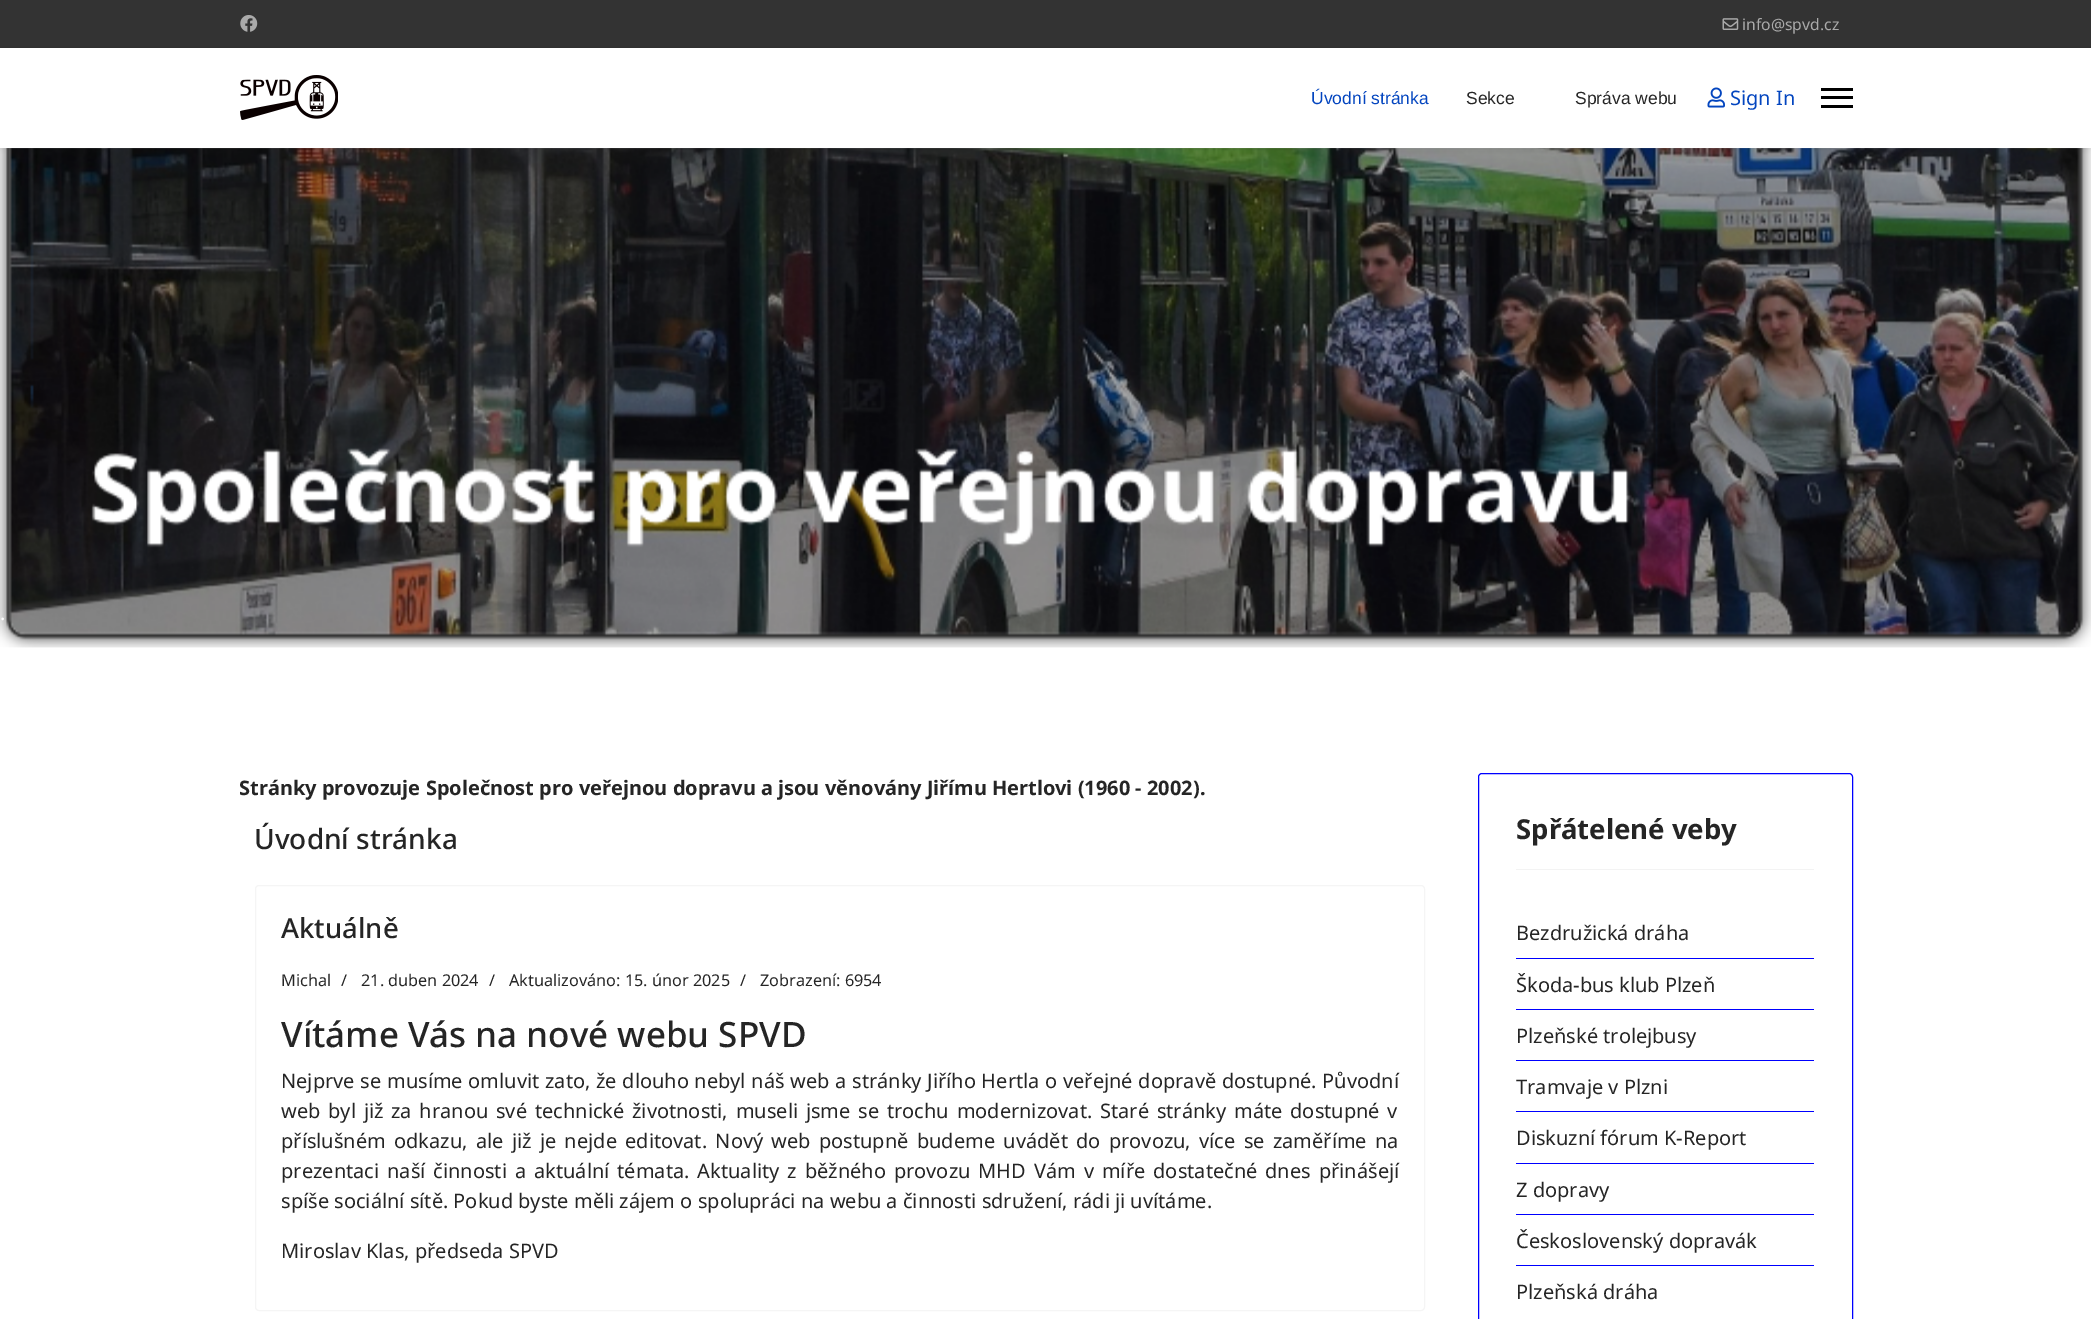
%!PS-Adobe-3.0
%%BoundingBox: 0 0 2091 1319
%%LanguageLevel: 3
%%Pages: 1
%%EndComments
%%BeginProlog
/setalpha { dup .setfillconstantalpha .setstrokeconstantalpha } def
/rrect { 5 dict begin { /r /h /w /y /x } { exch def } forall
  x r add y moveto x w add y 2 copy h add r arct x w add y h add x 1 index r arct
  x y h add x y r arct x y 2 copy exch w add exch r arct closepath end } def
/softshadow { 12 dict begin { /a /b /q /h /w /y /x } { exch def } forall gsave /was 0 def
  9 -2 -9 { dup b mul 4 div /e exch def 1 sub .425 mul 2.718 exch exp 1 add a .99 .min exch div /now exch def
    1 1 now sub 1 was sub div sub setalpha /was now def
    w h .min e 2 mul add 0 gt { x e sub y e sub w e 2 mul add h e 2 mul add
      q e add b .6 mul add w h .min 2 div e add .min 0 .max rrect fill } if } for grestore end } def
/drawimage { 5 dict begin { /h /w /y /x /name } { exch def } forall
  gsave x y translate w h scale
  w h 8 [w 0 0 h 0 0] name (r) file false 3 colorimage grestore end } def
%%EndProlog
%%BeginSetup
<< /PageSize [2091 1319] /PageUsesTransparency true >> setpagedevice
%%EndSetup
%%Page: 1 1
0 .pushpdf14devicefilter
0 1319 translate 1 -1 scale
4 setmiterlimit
1 setgray
0 0 2091 1319 rectfill
0.2 setgray
0 0 2091 48 rectfill
(images/1.raw) 240 15 18 17 drawimage
(images/2.raw) 1722 18 17 12 drawimage
(images/5.raw) 0 148 2091 500 drawimage
0 setgray
0 48 2091 100 0 2.5 0.1 softshadow
1 setgray
0 48 2091 100 rectfill
(images/3.raw) 240 75 98 45 drawimage
(images/4.raw) 1707 87 18 21 drawimage
0 setgray
1821 88 32 3 rectfill
1821 96 32 3 rectfill
1821 105 32 3 rectfill
0.961 setgray
255.5 885.5 1169 425 3.5 rrect stroke
0 0 1 setrgbcolor
1478.5 773.5 374 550 3.5 rrect stroke
0.953 setgray
1516 869 298 1 rectfill
0 0 1 setrgbcolor
1516 958 298 1 rectfill
1516 1009 298 1 rectfill
1516 1060 298 1 rectfill
1516 1111 298 1 rectfill
1516 1163 298 1 rectfill
1516 1214 298 1 rectfill
1516 1265 298 1 rectfill
/NotoSans-Regular [15.75 0 0 -15.75 0 0] selectfont
0.667 setgray
1742 30 moveto (info@spvd.cz) show
/LiberationSans-Regular [17.5 0 0 -17.5 0 0] selectfont
0.012 0.271 0.749 setrgbcolor
1311 104 moveto (Úvodní stránka) show
0.145 setgray
1466 104 moveto (Sekce) show
1575 104 moveto (Správa webu) show
/NotoSans-Regular [20 0 0 -20 0 0] selectfont
0.012 0.271 0.749 setrgbcolor
1730 105 moveto (Sign In) show
1 setgray
0 620 moveto (.) show
/NotoSans-Bold [20 0 0 -20 0 0] selectfont
0.145 setgray
239 795 moveto (Stránky provozuje Společnost pro veřejnou dopravu a jsou věnovány Jiřímu Hertlovi \(1960 - 2002\).) show
/NotoSans-Medium [28 0 0 -28 0 0] selectfont
254 849 moveto (Úvodní stránka) show
/NotoSans-Medium [27.5 0 0 -27.5 0 0] selectfont
281 938 moveto (Aktuálně) show
/NotoSans-Regular [16.25 0 0 -16.25 0 0] selectfont
281 986 moveto (Michal) show
341 986 moveto (/) show
361 986 moveto (21. duben 2024) show
489 986 moveto (/) show
509 986 moveto (Aktualizováno: 15. únor 2025) show
740 986 moveto (/) show
760 986 moveto (Zobrazení: 6954) show
/NotoSans-Medium [35 0 0 -35 0 0] selectfont
281 1047 moveto (Vítáme Vás na nové webu SPVD) show
/NotoSans-Regular [20 0 0 -20 0 0] selectfont
281 1088 moveto 0.5 0 32 (Nejprve se musíme omluvit zato, že dlouho nebyl náš web a stránky Jiřího Hertla o veřejné dopravě dostupné. Původní) widthshow
281 1118 moveto 2.6 0 32 (web byl již za hranou své technické životnosti, museli jsme se trochu modernizovat. Staré stránky máte dostupné v) widthshow
281 1148 moveto 3.1 0 32 (příslušném odkazu, ale již je nejde editovat. Nový web postupně budeme uvádět do provozu, více se zaměříme na) widthshow
281 1178 moveto 2.75 0 32 (prezentaci naší činnosti a aktuální témata. Aktuality z běžného provozu MHD Vám v míře dostatečné dnes přinášejí) widthshow
281 1208 moveto (spíše sociální sítě. Pokud byste měli zájem o spolupráci na webu a činnosti sdružení, rádi ji uvítáme.) show
281 1258 moveto (Miroslav Klas, předseda SPVD) show
/NotoSans-Bold [27.5 0 0 -27.5 0 0] selectfont
1516 839 moveto (Spřátelené veby) show
/NotoSans-Regular [20 0 0 -20 0 0] selectfont
1516 940 moveto (Bezdružická dráha) show
1516 992 moveto (Škoda-bus klub Plzeň) show
1516 1043 moveto (Plzeňské trolejbusy) show
1516 1094 moveto (Tramvaje v Plzni) show
1516 1145 moveto (Diskuzní fórum K-Report) show
1516 1197 moveto (Z dopravy) show
1516 1248 moveto (Československý dopravák) show
1516 1299 moveto (Plzeňská dráha) show
.poppdf14devicefilter showpage
%%EOF
